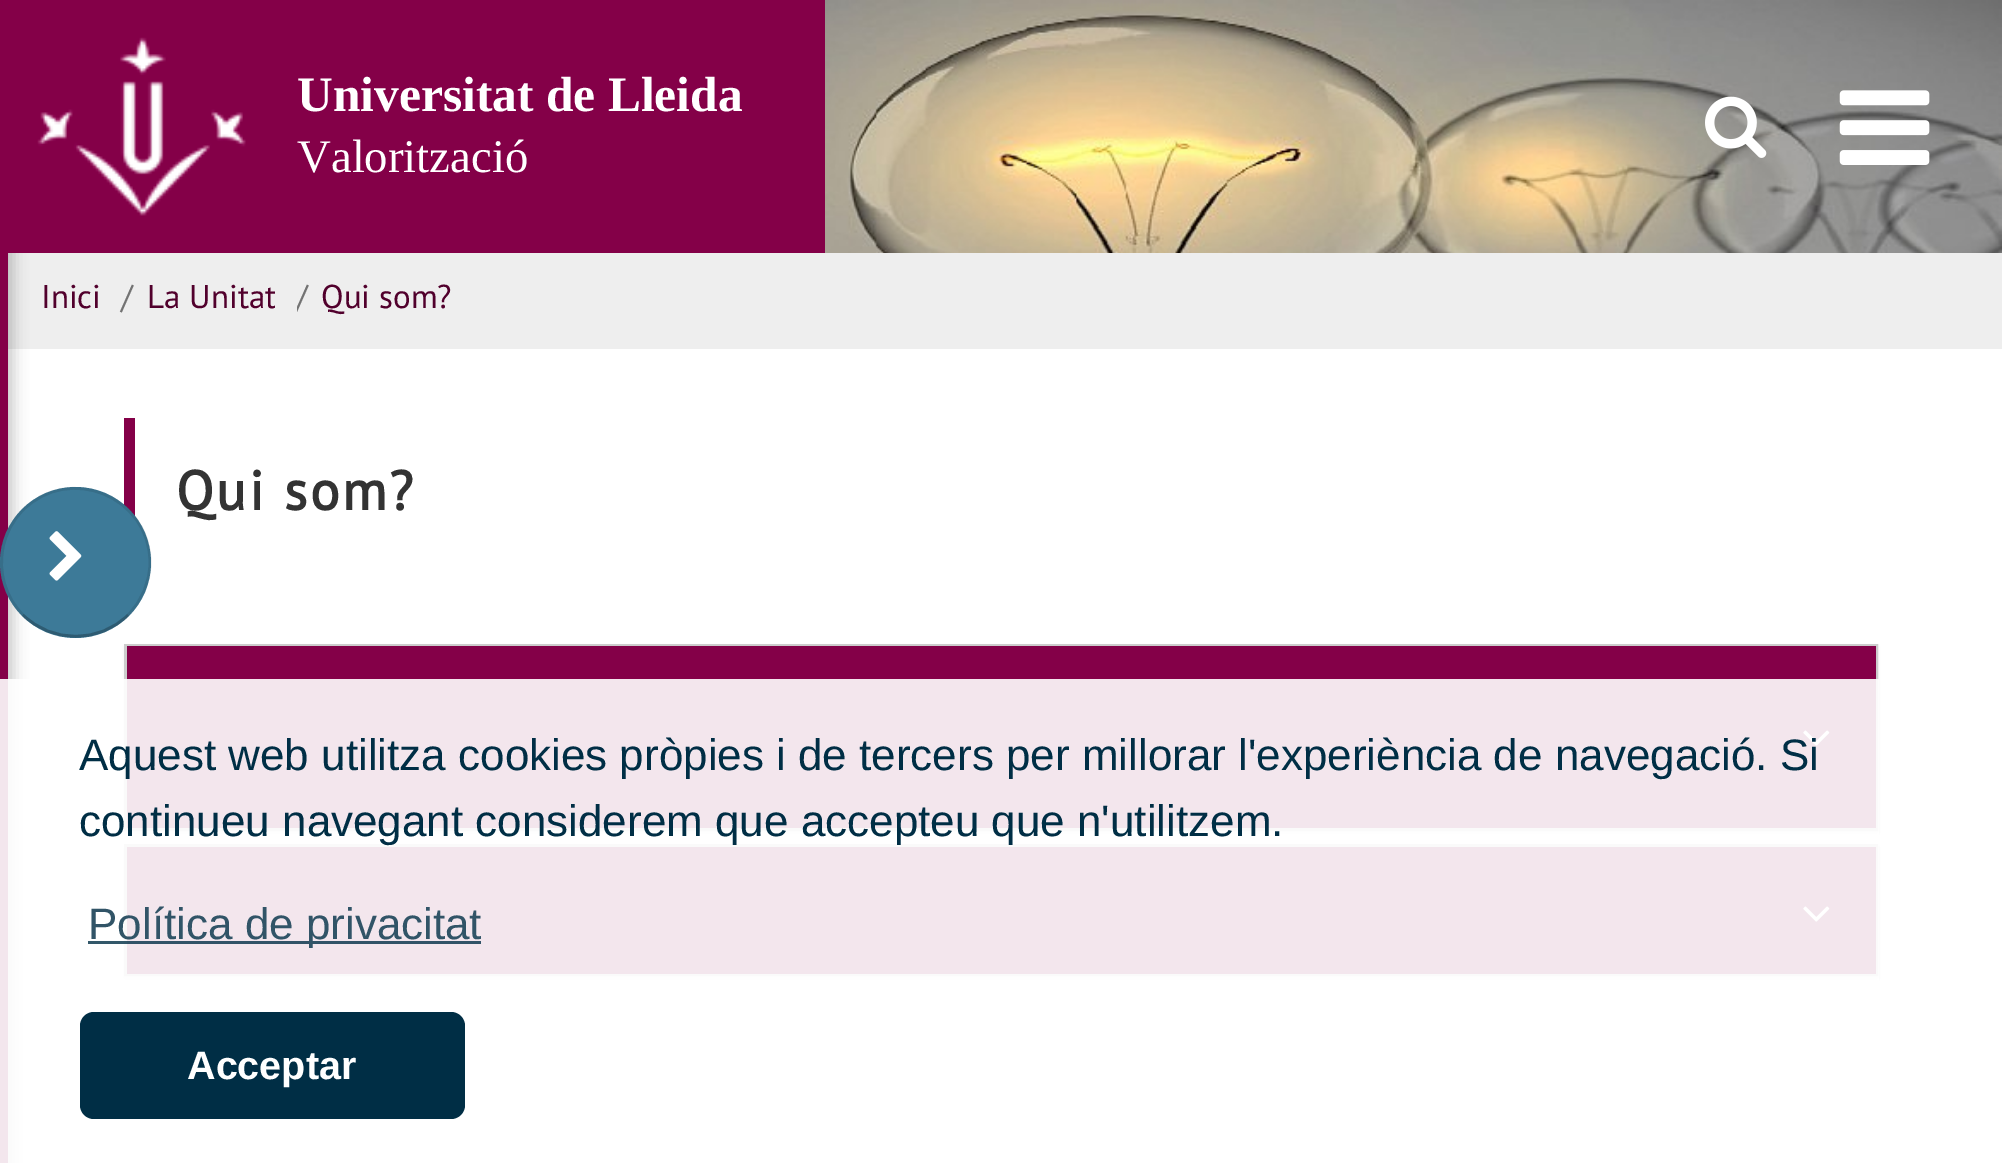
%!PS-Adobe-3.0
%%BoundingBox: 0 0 2002 1163
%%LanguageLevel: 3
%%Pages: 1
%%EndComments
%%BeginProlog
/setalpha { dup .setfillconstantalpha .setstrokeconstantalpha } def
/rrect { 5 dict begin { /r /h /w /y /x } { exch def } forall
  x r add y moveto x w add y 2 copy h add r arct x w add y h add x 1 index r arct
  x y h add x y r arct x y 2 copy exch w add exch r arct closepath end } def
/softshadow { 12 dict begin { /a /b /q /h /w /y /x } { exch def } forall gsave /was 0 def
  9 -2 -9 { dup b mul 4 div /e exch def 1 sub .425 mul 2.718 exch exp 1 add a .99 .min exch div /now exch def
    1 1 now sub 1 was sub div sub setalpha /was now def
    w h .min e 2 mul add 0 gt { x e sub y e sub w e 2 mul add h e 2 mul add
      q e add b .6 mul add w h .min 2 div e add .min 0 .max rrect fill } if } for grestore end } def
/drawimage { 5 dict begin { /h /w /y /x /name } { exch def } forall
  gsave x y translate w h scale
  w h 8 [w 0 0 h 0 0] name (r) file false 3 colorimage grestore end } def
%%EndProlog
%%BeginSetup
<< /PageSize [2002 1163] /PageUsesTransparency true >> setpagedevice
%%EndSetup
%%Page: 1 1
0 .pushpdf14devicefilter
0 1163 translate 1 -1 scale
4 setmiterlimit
0.933 setgray
0 0 2002 1163 rectfill
(images/1.raw) 825 0 1177 253 drawimage
1 setgray
8 349 1994 814 rectfill
0 setgray
-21 -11 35 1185 0 7 0.2 softshadow
0.518 0 0.282 setrgbcolor
0 0 825 253 rectfill
(images/2.raw) 37 37 209 179 drawimage
(images/3.raw) 1705 96 62 62 drawimage
(images/4.raw) 1839 90 91 75 drawimage
0 253 8 910 rectfill
124 418 11 98 rectfill
0.239 0.478 0.596 setrgbcolor
newpath 75.5 562.5 75.5 0 360 arc closepath fill
0.25 setalpha
0 setgray
2.8 setlinewidth
newpath 128 615 moveto 99.5 643.5 52 643.5 23 615 curveto stroke
0.1 setalpha
newpath 23 615 moveto 5.5 597.5 -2 572 3 548 curveto 5.5 533.5 13 520 23 510 curveto 69.5 463.5 150 496.5 150 562.5 curveto 150 582 142 601 128 615 curveto stroke
1 setalpha
(images/5.raw) 49 531 33 50 drawimage
124 646 1754 187 0 1.5 0.05 softshadow
0.8 setgray
3 setlinewidth
125.5 645.5 1751 184 rectstroke
0.518 0 0.282 setrgbcolor
127 646 1749 182 rectfill
(images/6.raw) 1803 730 27 16 drawimage
0 setgray
124 847 1754 132 0 1.5 0.05 softshadow
0.8 setgray
125.5 845.5 1751 129 rectstroke
0.518 0 0.282 setrgbcolor
127 847 1749 127 rectfill
(images/6.raw) 1803 906 27 16 drawimage
0.9 setalpha
1 setgray
0 679 1879 484 rectfill
0.8 setalpha
0 0.18 0.271 setrgbcolor
88 941 393 3 rectfill
1 setalpha
80 1012 385 107 14 rrect fill
/LiberationSerif-Bold [49.5 0 0 -49.5 0 0] selectfont
1 setgray
297 111 moveto (Universitat de Lleida) show
/LiberationSerif-Regular [46.75 0 0 -46.75 0 0] selectfont
297 172 moveto (Valorització) show
/PTSans-Regular [33 0 0 -33 0 0] selectfont
0.318 0 0.173 setrgbcolor
41 308 moveto (Inici) show
0.451 setgray
121 308 moveto (/) show
gsave
121 272 154 47 rectclip
0.318 0 0.173 setrgbcolor
147 308 moveto (La Unitat) show
grestore
gsave
297 272 154 47 rectclip
296 308 moveto (/) show
grestore
0.318 0 0.173 setrgbcolor
321 308 moveto (Qui som?) show
/PTSans-Bold [55 0 0 -55 0 0] selectfont
0.2 setgray
176 510 moveto 2.75 0 (Qui som?) ashow
/LiberationSans-Regular [44 0 0 -44 0 0] selectfont
0 0.18 0.271 setrgbcolor
79 770 moveto (Aquest web utilitza cookies pròpies i de tercers per millorar l'experiència de navegació. Si) show
79 836 moveto (continueu navegant considerem que accepteu que n'utilitzem.) show
0.192 0.329 0.404 setrgbcolor
88 939 moveto (Política de privacitat) show
/LiberationSans-Bold [39.5 0 0 -39.5 0 0] selectfont
1 setgray
187 1079 moveto (Acceptar) show
.poppdf14devicefilter showpage
%%EOF
